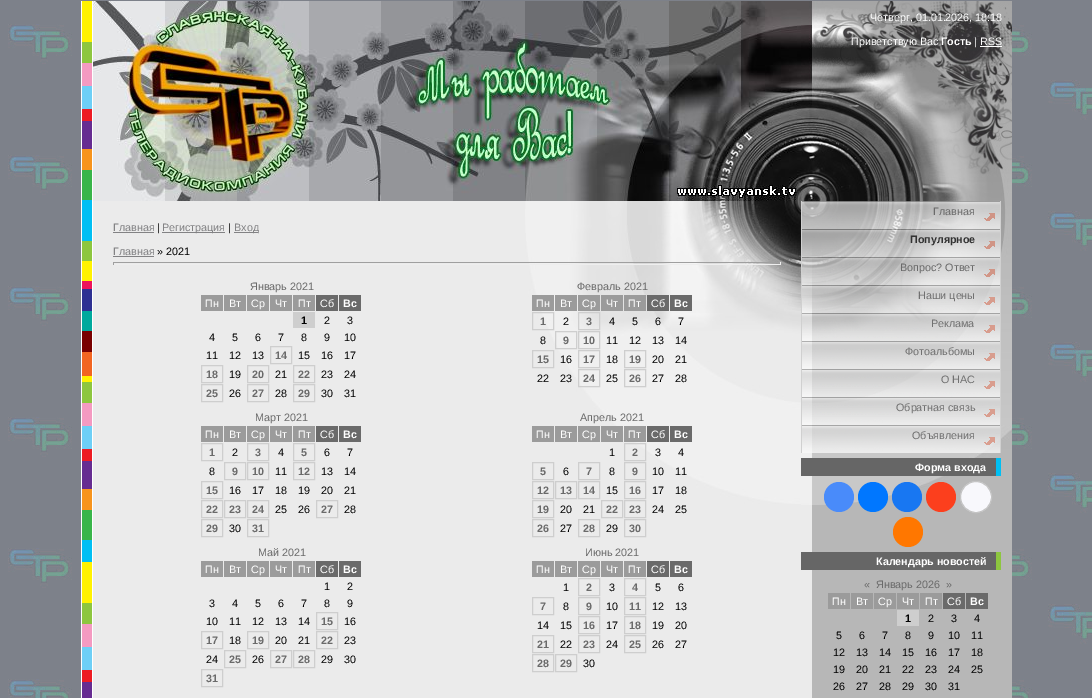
%!PS-Adobe-3.0
%%BoundingBox: 0 0 1092 698
%%LanguageLevel: 3
%%Pages: 1
%%EndComments
%%BeginProlog
/drawimage { 5 dict begin { /h /w /y /x /name } { exch def } forall
  gsave x y translate w h scale
  w h 8 [w 0 0 h 0 0] name (r) file false 3 colorimage grestore end } def
%%EndProlog
%%BeginSetup
<< /PageSize [1092 698] >> setpagedevice
%%EndSetup
%%Page: 1 1
0 698 translate 1 -1 scale
4 setmiterlimit
1 setgray
0 0 1092 698 rectfill
(images/1.raw) 0 0 1092 698 drawimage
0.922 setgray
93 201 719 497 rectfill
0.718 setgray
812 505 200 193 rectfill
(images/2.raw) 81 1 12 697 drawimage
(images/3.raw) 93 1 708 200 drawimage
(images/4.raw) 801 1 211 200 drawimage
1 setgray
980 46 22 1 rectfill
(images/5.raw) 525 201 276 303 drawimage
0.51 0.51 0.518 setrgbcolor
113 232 41 1 rectfill
162 232 63 1 rectfill
234 232 24 1 rectfill
113 256 41 1 rectfill
0.624 setgray
113 262 668 1 rectfill
0.933 setgray
780 262 1 3 rectfill
113 264 668 1 rectfill
0.624 setgray
113 262 1 3 rectfill
0.608 setgray
201 295 22 16 rectfill
224 295 22 16 rectfill
247 295 22 16 rectfill
270 295 22 16 rectfill
293 295 22 16 rectfill
0.416 setgray
316 295 22 16 rectfill
339 295 22 16 rectfill
0.808 setgray
293 312 22 16 rectfill
270.5 346.5 21 17 rectstroke
201.5 365.5 21 17 rectstroke
247.5 365.5 21 17 rectstroke
293.5 365.5 21 17 rectstroke
201.5 384.5 21 17 rectstroke
247.5 384.5 21 17 rectstroke
293.5 384.5 21 17 rectstroke
0.608 setgray
532 295 22 16 rectfill
555 295 22 16 rectfill
578 295 22 16 rectfill
601 295 22 16 rectfill
624 295 22 16 rectfill
0.416 setgray
647 295 22 16 rectfill
670 295 22 16 rectfill
0.808 setgray
532.5 312.5 21 17 rectstroke
578.5 312.5 21 17 rectstroke
555.5 331.5 21 17 rectstroke
578.5 331.5 21 17 rectstroke
532.5 350.5 21 17 rectstroke
578.5 350.5 21 17 rectstroke
624.5 350.5 21 17 rectstroke
578.5 369.5 21 17 rectstroke
624.5 369.5 21 17 rectstroke
0.608 setgray
201 426 22 16 rectfill
224 426 22 16 rectfill
247 426 22 16 rectfill
270 426 22 16 rectfill
293 426 22 16 rectfill
0.416 setgray
316 426 22 16 rectfill
339 426 22 16 rectfill
0.808 setgray
201.5 443.5 21 17 rectstroke
247.5 443.5 21 17 rectstroke
293.5 443.5 21 17 rectstroke
224.5 462.5 21 17 rectstroke
247.5 462.5 21 17 rectstroke
293.5 462.5 21 17 rectstroke
201.5 481.5 21 17 rectstroke
201.5 500.5 21 17 rectstroke
224.5 500.5 21 17 rectstroke
247.5 500.5 21 17 rectstroke
316.5 500.5 21 17 rectstroke
201.5 519.5 21 17 rectstroke
247.5 519.5 21 17 rectstroke
0.608 setgray
532 426 22 16 rectfill
555 426 22 16 rectfill
578 426 22 16 rectfill
601 426 22 16 rectfill
624 426 22 16 rectfill
0.416 setgray
647 426 22 16 rectfill
670 426 22 16 rectfill
0.808 setgray
624.5 443.5 21 17 rectstroke
532.5 462.5 21 17 rectstroke
578.5 462.5 21 17 rectstroke
624.5 462.5 21 17 rectstroke
532.5 481.5 21 17 rectstroke
555.5 481.5 21 17 rectstroke
578.5 481.5 21 17 rectstroke
624.5 481.5 21 17 rectstroke
532.5 500.5 21 17 rectstroke
601.5 500.5 21 17 rectstroke
624.5 500.5 21 17 rectstroke
532.5 519.5 21 17 rectstroke
578.5 519.5 21 17 rectstroke
624.5 519.5 21 17 rectstroke
0.608 setgray
201 561 22 16 rectfill
224 561 22 16 rectfill
247 561 22 16 rectfill
270 561 22 16 rectfill
293 561 22 16 rectfill
0.416 setgray
316 561 22 16 rectfill
339 561 22 16 rectfill
0.808 setgray
316.5 612.5 21 17 rectstroke
201.5 631.5 21 17 rectstroke
247.5 631.5 21 17 rectstroke
316.5 631.5 21 17 rectstroke
224.5 650.5 21 17 rectstroke
270.5 650.5 21 17 rectstroke
293.5 650.5 21 17 rectstroke
201.5 669.5 21 17 rectstroke
0.608 setgray
532 561 22 16 rectfill
555 561 22 16 rectfill
578 561 22 16 rectfill
601 561 22 16 rectfill
624 561 22 16 rectfill
0.416 setgray
647 561 22 16 rectfill
670 561 22 16 rectfill
0.808 setgray
578.5 578.5 21 17 rectstroke
624.5 578.5 21 17 rectstroke
532.5 597.5 21 17 rectstroke
578.5 597.5 21 17 rectstroke
624.5 597.5 21 17 rectstroke
578.5 616.5 21 17 rectstroke
624.5 616.5 21 17 rectstroke
532.5 635.5 21 17 rectstroke
578.5 635.5 21 17 rectstroke
624.5 635.5 21 17 rectstroke
532.5 654.5 21 17 rectstroke
555.5 654.5 21 17 rectstroke
(images/6.raw) 801 201 211 304 drawimage
0.816 setgray
1000 201 1 252 rectfill
801 201 1 252 rectfill
(images/7.raw) 802 201 198 28 drawimage
(images/8.raw) 802 229 198 28 drawimage
(images/9.raw) 802 257 198 28 drawimage
(images/10.raw) 802 285 198 28 drawimage
(images/11.raw) 802 313 198 28 drawimage
(images/12.raw) 802 341 198 28 drawimage
(images/13.raw) 802 369 198 28 drawimage
(images/14.raw) 802 397 198 28 drawimage
(images/15.raw) 802 425 198 28 drawimage
0.4 setgray
801 458 195 18 rectfill
0 0.749 0.953 setrgbcolor
996 458 5 18 rectfill
0.286 0.545 0.98 setrgbcolor
newpath 839 497 15 0 360 arc closepath fill
0 0.467 1 setrgbcolor
newpath 873 497 15 0 360 arc closepath fill
0.094 0.467 0.949 setrgbcolor
newpath 907 497 15 0 360 arc closepath fill
0.988 0.247 0.114 setrgbcolor
newpath 941 497 15 0 360 arc closepath fill
0.973 0.973 0.988 setrgbcolor
newpath 976 497 15.5 0 360 arc closepath gsave fill grestore
0.769 setgray
stroke
1 0.467 0 setrgbcolor
newpath 908 532 15 0 360 arc closepath fill
0.4 setgray
801 552 195 18 rectfill
0.553 0.776 0.247 setrgbcolor
996 552 5 18 rectfill
0.608 setgray
828 593 22 16 rectfill
851 593 22 16 rectfill
874 593 22 16 rectfill
897 593 22 16 rectfill
920 593 22 16 rectfill
0.416 setgray
943 593 22 16 rectfill
966 593 22 16 rectfill
0.808 setgray
897 610 22 16 rectfill
/LiberationSans-Regular [10.75 0 0 -10.75 0 0] selectfont
1 setgray
870 21 moveto (Четверг, 01.01.2026, 18:18) show
851 45 moveto (Приветствую Вас) show
/LiberationSans-Bold [10.75 0 0 -10.75 0 0] selectfont
941 45 moveto (Гость) show
/LiberationSans-Regular [10.75 0 0 -10.75 0 0] selectfont
974 45 moveto (| RSS) show
0.51 0.51 0.518 setrgbcolor
113 231 moveto (Главная) show
0 setgray
157 231 moveto (|) show
0.51 0.51 0.518 setrgbcolor
162 231 moveto (Регистрация) show
0 setgray
228 231 moveto (|) show
0.51 0.51 0.518 setrgbcolor
234 231 moveto (Вход) show
113 255 moveto (Главная) show
0 setgray
157 255 moveto (» 2021) show
0.416 setgray
250 290 moveto (Январь 2021) show
1 setgray
205 307 moveto (Пн) show
229 307 moveto (Вт) show
251 307 moveto (Ср) show
275 307 moveto (Чт) show
298 307 moveto (Пт) show
320 307 moveto (Сб) show
/LiberationSans-Bold [10.75 0 0 -10.75 0 0] selectfont
343 307 moveto (Вс) show
0 setgray
301 324 moveto (1) show
/LiberationSans-Regular [10.75 0 0 -10.75 0 0] selectfont
324 324 moveto (2) show
347 324 moveto (3) show
209 341 moveto (4) show
232 341 moveto (5) show
255 341 moveto (6) show
278 341 moveto (7) show
301 341 moveto (8) show
324 341 moveto (9) show
344 341 moveto (10) show
206 359 moveto (11) show
229 359 moveto (12) show
252 359 moveto (13) show
/LiberationSans-Bold [10.75 0 0 -10.75 0 0] selectfont
0.416 setgray
275 359 moveto (14) show
/LiberationSans-Regular [10.75 0 0 -10.75 0 0] selectfont
0 setgray
298 359 moveto (15) show
321 359 moveto (16) show
344 359 moveto (17) show
/LiberationSans-Bold [10.75 0 0 -10.75 0 0] selectfont
0.416 setgray
206 378 moveto (18) show
/LiberationSans-Regular [10.75 0 0 -10.75 0 0] selectfont
0 setgray
229 378 moveto (19) show
/LiberationSans-Bold [10.75 0 0 -10.75 0 0] selectfont
0.416 setgray
252 378 moveto (20) show
/LiberationSans-Regular [10.75 0 0 -10.75 0 0] selectfont
0 setgray
275 378 moveto (21) show
/LiberationSans-Bold [10.75 0 0 -10.75 0 0] selectfont
0.416 setgray
298 378 moveto (22) show
/LiberationSans-Regular [10.75 0 0 -10.75 0 0] selectfont
0 setgray
321 378 moveto (23) show
344 378 moveto (24) show
/LiberationSans-Bold [10.75 0 0 -10.75 0 0] selectfont
0.416 setgray
206 397 moveto (25) show
/LiberationSans-Regular [10.75 0 0 -10.75 0 0] selectfont
0 setgray
229 397 moveto (26) show
/LiberationSans-Bold [10.75 0 0 -10.75 0 0] selectfont
0.416 setgray
252 397 moveto (27) show
/LiberationSans-Regular [10.75 0 0 -10.75 0 0] selectfont
0 setgray
275 397 moveto (28) show
/LiberationSans-Bold [10.75 0 0 -10.75 0 0] selectfont
0.416 setgray
298 397 moveto (29) show
/LiberationSans-Regular [10.75 0 0 -10.75 0 0] selectfont
0 setgray
321 397 moveto (30) show
344 397 moveto (31) show
0.416 setgray
577 290 moveto (Февраль 2021) show
1 setgray
536 307 moveto (Пн) show
560 307 moveto (Вт) show
582 307 moveto (Ср) show
606 307 moveto (Чт) show
628 307 moveto (Пт) show
651 307 moveto (Сб) show
/LiberationSans-Bold [10.75 0 0 -10.75 0 0] selectfont
674 307 moveto (Вс) show
0.416 setgray
540 325 moveto (1) show
/LiberationSans-Regular [10.75 0 0 -10.75 0 0] selectfont
0 setgray
563 325 moveto (2) show
/LiberationSans-Bold [10.75 0 0 -10.75 0 0] selectfont
0.416 setgray
586 325 moveto (3) show
/LiberationSans-Regular [10.75 0 0 -10.75 0 0] selectfont
0 setgray
609 325 moveto (4) show
632 325 moveto (5) show
655 325 moveto (6) show
678 325 moveto (7) show
540 344 moveto (8) show
/LiberationSans-Bold [10.75 0 0 -10.75 0 0] selectfont
0.416 setgray
563 344 moveto (9) show
583 344 moveto (10) show
/LiberationSans-Regular [10.75 0 0 -10.75 0 0] selectfont
0 setgray
606 344 moveto (11) show
629 344 moveto (12) show
652 344 moveto (13) show
675 344 moveto (14) show
/LiberationSans-Bold [10.75 0 0 -10.75 0 0] selectfont
0.416 setgray
537 363 moveto (15) show
/LiberationSans-Regular [10.75 0 0 -10.75 0 0] selectfont
0 setgray
560 363 moveto (16) show
/LiberationSans-Bold [10.75 0 0 -10.75 0 0] selectfont
0.416 setgray
583 363 moveto (17) show
/LiberationSans-Regular [10.75 0 0 -10.75 0 0] selectfont
0 setgray
606 363 moveto (18) show
/LiberationSans-Bold [10.75 0 0 -10.75 0 0] selectfont
0.416 setgray
629 363 moveto (19) show
/LiberationSans-Regular [10.75 0 0 -10.75 0 0] selectfont
0 setgray
652 363 moveto (20) show
675 363 moveto (21) show
537 382 moveto (22) show
560 382 moveto (23) show
/LiberationSans-Bold [10.75 0 0 -10.75 0 0] selectfont
0.416 setgray
583 382 moveto (24) show
/LiberationSans-Regular [10.75 0 0 -10.75 0 0] selectfont
0 setgray
606 382 moveto (25) show
/LiberationSans-Bold [10.75 0 0 -10.75 0 0] selectfont
0.416 setgray
629 382 moveto (26) show
/LiberationSans-Regular [10.75 0 0 -10.75 0 0] selectfont
0 setgray
652 382 moveto (27) show
675 382 moveto (28) show
0.416 setgray
255 421 moveto (Март 2021) show
1 setgray
205 438 moveto (Пн) show
229 438 moveto (Вт) show
251 438 moveto (Ср) show
275 438 moveto (Чт) show
298 438 moveto (Пт) show
320 438 moveto (Сб) show
/LiberationSans-Bold [10.75 0 0 -10.75 0 0] selectfont
343 438 moveto (Вс) show
0.416 setgray
209 456 moveto (1) show
/LiberationSans-Regular [10.75 0 0 -10.75 0 0] selectfont
0 setgray
232 456 moveto (2) show
/LiberationSans-Bold [10.75 0 0 -10.75 0 0] selectfont
0.416 setgray
255 456 moveto (3) show
/LiberationSans-Regular [10.75 0 0 -10.75 0 0] selectfont
0 setgray
278 456 moveto (4) show
/LiberationSans-Bold [10.75 0 0 -10.75 0 0] selectfont
0.416 setgray
301 456 moveto (5) show
/LiberationSans-Regular [10.75 0 0 -10.75 0 0] selectfont
0 setgray
324 456 moveto (6) show
347 456 moveto (7) show
209 475 moveto (8) show
/LiberationSans-Bold [10.75 0 0 -10.75 0 0] selectfont
0.416 setgray
232 475 moveto (9) show
252 475 moveto (10) show
/LiberationSans-Regular [10.75 0 0 -10.75 0 0] selectfont
0 setgray
275 475 moveto (11) show
/LiberationSans-Bold [10.75 0 0 -10.75 0 0] selectfont
0.416 setgray
298 475 moveto (12) show
/LiberationSans-Regular [10.75 0 0 -10.75 0 0] selectfont
0 setgray
321 475 moveto (13) show
344 475 moveto (14) show
/LiberationSans-Bold [10.75 0 0 -10.75 0 0] selectfont
0.416 setgray
206 494 moveto (15) show
/LiberationSans-Regular [10.75 0 0 -10.75 0 0] selectfont
0 setgray
229 494 moveto (16) show
252 494 moveto (17) show
275 494 moveto (18) show
298 494 moveto (19) show
321 494 moveto (20) show
344 494 moveto (21) show
/LiberationSans-Bold [10.75 0 0 -10.75 0 0] selectfont
0.416 setgray
206 513 moveto (22) show
229 513 moveto (23) show
252 513 moveto (24) show
/LiberationSans-Regular [10.75 0 0 -10.75 0 0] selectfont
0 setgray
275 513 moveto (25) show
298 513 moveto (26) show
/LiberationSans-Bold [10.75 0 0 -10.75 0 0] selectfont
0.416 setgray
321 513 moveto (27) show
/LiberationSans-Regular [10.75 0 0 -10.75 0 0] selectfont
0 setgray
344 513 moveto (28) show
/LiberationSans-Bold [10.75 0 0 -10.75 0 0] selectfont
0.416 setgray
206 532 moveto (29) show
/LiberationSans-Regular [10.75 0 0 -10.75 0 0] selectfont
0 setgray
229 532 moveto (30) show
/LiberationSans-Bold [10.75 0 0 -10.75 0 0] selectfont
0.416 setgray
252 532 moveto (31) show
/LiberationSans-Regular [10.75 0 0 -10.75 0 0] selectfont
580 421 moveto (Апрель 2021) show
1 setgray
536 438 moveto (Пн) show
560 438 moveto (Вт) show
582 438 moveto (Ср) show
606 438 moveto (Чт) show
628 438 moveto (Пт) show
651 438 moveto (Сб) show
/LiberationSans-Bold [10.75 0 0 -10.75 0 0] selectfont
674 438 moveto (Вс) show
/LiberationSans-Regular [10.75 0 0 -10.75 0 0] selectfont
0 setgray
609 456 moveto (1) show
/LiberationSans-Bold [10.75 0 0 -10.75 0 0] selectfont
0.416 setgray
632 456 moveto (2) show
/LiberationSans-Regular [10.75 0 0 -10.75 0 0] selectfont
0 setgray
655 456 moveto (3) show
678 456 moveto (4) show
/LiberationSans-Bold [10.75 0 0 -10.75 0 0] selectfont
0.416 setgray
540 475 moveto (5) show
/LiberationSans-Regular [10.75 0 0 -10.75 0 0] selectfont
0 setgray
563 475 moveto (6) show
/LiberationSans-Bold [10.75 0 0 -10.75 0 0] selectfont
0.416 setgray
586 475 moveto (7) show
/LiberationSans-Regular [10.75 0 0 -10.75 0 0] selectfont
0 setgray
609 475 moveto (8) show
/LiberationSans-Bold [10.75 0 0 -10.75 0 0] selectfont
0.416 setgray
632 475 moveto (9) show
/LiberationSans-Regular [10.75 0 0 -10.75 0 0] selectfont
0 setgray
652 475 moveto (10) show
675 475 moveto (11) show
/LiberationSans-Bold [10.75 0 0 -10.75 0 0] selectfont
0.416 setgray
537 494 moveto (12) show
560 494 moveto (13) show
583 494 moveto (14) show
/LiberationSans-Regular [10.75 0 0 -10.75 0 0] selectfont
0 setgray
606 494 moveto (15) show
/LiberationSans-Bold [10.75 0 0 -10.75 0 0] selectfont
0.416 setgray
629 494 moveto (16) show
/LiberationSans-Regular [10.75 0 0 -10.75 0 0] selectfont
0 setgray
652 494 moveto (17) show
675 494 moveto (18) show
/LiberationSans-Bold [10.75 0 0 -10.75 0 0] selectfont
0.416 setgray
537 513 moveto (19) show
/LiberationSans-Regular [10.75 0 0 -10.75 0 0] selectfont
0 setgray
560 513 moveto (20) show
583 513 moveto (21) show
/LiberationSans-Bold [10.75 0 0 -10.75 0 0] selectfont
0.416 setgray
606 513 moveto (22) show
629 513 moveto (23) show
/LiberationSans-Regular [10.75 0 0 -10.75 0 0] selectfont
0 setgray
652 513 moveto (24) show
675 513 moveto (25) show
/LiberationSans-Bold [10.75 0 0 -10.75 0 0] selectfont
0.416 setgray
537 532 moveto (26) show
/LiberationSans-Regular [10.75 0 0 -10.75 0 0] selectfont
0 setgray
560 532 moveto (27) show
/LiberationSans-Bold [10.75 0 0 -10.75 0 0] selectfont
0.416 setgray
583 532 moveto (28) show
/LiberationSans-Regular [10.75 0 0 -10.75 0 0] selectfont
0 setgray
606 532 moveto (29) show
/LiberationSans-Bold [10.75 0 0 -10.75 0 0] selectfont
0.416 setgray
629 532 moveto (30) show
/LiberationSans-Regular [10.75 0 0 -10.75 0 0] selectfont
258 556 moveto (Май 2021) show
1 setgray
205 573 moveto (Пн) show
229 573 moveto (Вт) show
251 573 moveto (Ср) show
275 573 moveto (Чт) show
298 573 moveto (Пт) show
320 573 moveto (Сб) show
/LiberationSans-Bold [10.75 0 0 -10.75 0 0] selectfont
343 573 moveto (Вс) show
/LiberationSans-Regular [10.75 0 0 -10.75 0 0] selectfont
0 setgray
324 590 moveto (1) show
347 590 moveto (2) show
209 607 moveto (3) show
232 607 moveto (4) show
255 607 moveto (5) show
278 607 moveto (6) show
301 607 moveto (7) show
324 607 moveto (8) show
347 607 moveto (9) show
206 625 moveto (10) show
229 625 moveto (11) show
252 625 moveto (12) show
275 625 moveto (13) show
298 625 moveto (14) show
/LiberationSans-Bold [10.75 0 0 -10.75 0 0] selectfont
0.416 setgray
321 625 moveto (15) show
/LiberationSans-Regular [10.75 0 0 -10.75 0 0] selectfont
0 setgray
344 625 moveto (16) show
/LiberationSans-Bold [10.75 0 0 -10.75 0 0] selectfont
0.416 setgray
206 644 moveto (17) show
/LiberationSans-Regular [10.75 0 0 -10.75 0 0] selectfont
0 setgray
229 644 moveto (18) show
/LiberationSans-Bold [10.75 0 0 -10.75 0 0] selectfont
0.416 setgray
252 644 moveto (19) show
/LiberationSans-Regular [10.75 0 0 -10.75 0 0] selectfont
0 setgray
275 644 moveto (20) show
298 644 moveto (21) show
/LiberationSans-Bold [10.75 0 0 -10.75 0 0] selectfont
0.416 setgray
321 644 moveto (22) show
/LiberationSans-Regular [10.75 0 0 -10.75 0 0] selectfont
0 setgray
344 644 moveto (23) show
206 663 moveto (24) show
/LiberationSans-Bold [10.75 0 0 -10.75 0 0] selectfont
0.416 setgray
229 663 moveto (25) show
/LiberationSans-Regular [10.75 0 0 -10.75 0 0] selectfont
0 setgray
252 663 moveto (26) show
/LiberationSans-Bold [10.75 0 0 -10.75 0 0] selectfont
0.416 setgray
275 663 moveto (27) show
298 663 moveto (28) show
/LiberationSans-Regular [10.75 0 0 -10.75 0 0] selectfont
0 setgray
321 663 moveto (29) show
344 663 moveto (30) show
/LiberationSans-Bold [10.75 0 0 -10.75 0 0] selectfont
0.416 setgray
206 682 moveto (31) show
/LiberationSans-Regular [10.75 0 0 -10.75 0 0] selectfont
585 556 moveto (Июнь 2021) show
1 setgray
536 573 moveto (Пн) show
560 573 moveto (Вт) show
582 573 moveto (Ср) show
606 573 moveto (Чт) show
628 573 moveto (Пт) show
651 573 moveto (Сб) show
/LiberationSans-Bold [10.75 0 0 -10.75 0 0] selectfont
674 573 moveto (Вс) show
/LiberationSans-Regular [10.75 0 0 -10.75 0 0] selectfont
0 setgray
563 591 moveto (1) show
/LiberationSans-Bold [10.75 0 0 -10.75 0 0] selectfont
0.416 setgray
586 591 moveto (2) show
/LiberationSans-Regular [10.75 0 0 -10.75 0 0] selectfont
0 setgray
609 591 moveto (3) show
/LiberationSans-Bold [10.75 0 0 -10.75 0 0] selectfont
0.416 setgray
632 591 moveto (4) show
/LiberationSans-Regular [10.75 0 0 -10.75 0 0] selectfont
0 setgray
655 591 moveto (5) show
678 591 moveto (6) show
/LiberationSans-Bold [10.75 0 0 -10.75 0 0] selectfont
0.416 setgray
540 610 moveto (7) show
/LiberationSans-Regular [10.75 0 0 -10.75 0 0] selectfont
0 setgray
563 610 moveto (8) show
/LiberationSans-Bold [10.75 0 0 -10.75 0 0] selectfont
0.416 setgray
586 610 moveto (9) show
/LiberationSans-Regular [10.75 0 0 -10.75 0 0] selectfont
0 setgray
606 610 moveto (10) show
/LiberationSans-Bold [10.75 0 0 -10.75 0 0] selectfont
0.416 setgray
629 610 moveto (11) show
/LiberationSans-Regular [10.75 0 0 -10.75 0 0] selectfont
0 setgray
652 610 moveto (12) show
675 610 moveto (13) show
537 629 moveto (14) show
560 629 moveto (15) show
/LiberationSans-Bold [10.75 0 0 -10.75 0 0] selectfont
0.416 setgray
583 629 moveto (16) show
/LiberationSans-Regular [10.75 0 0 -10.75 0 0] selectfont
0 setgray
606 629 moveto (17) show
/LiberationSans-Bold [10.75 0 0 -10.75 0 0] selectfont
0.416 setgray
629 629 moveto (18) show
/LiberationSans-Regular [10.75 0 0 -10.75 0 0] selectfont
0 setgray
652 629 moveto (19) show
675 629 moveto (20) show
/LiberationSans-Bold [10.75 0 0 -10.75 0 0] selectfont
0.416 setgray
537 648 moveto (21) show
/LiberationSans-Regular [10.75 0 0 -10.75 0 0] selectfont
0 setgray
560 648 moveto (22) show
/LiberationSans-Bold [10.75 0 0 -10.75 0 0] selectfont
0.416 setgray
583 648 moveto (23) show
/LiberationSans-Regular [10.75 0 0 -10.75 0 0] selectfont
0 setgray
606 648 moveto (24) show
/LiberationSans-Bold [10.75 0 0 -10.75 0 0] selectfont
0.416 setgray
629 648 moveto (25) show
/LiberationSans-Regular [10.75 0 0 -10.75 0 0] selectfont
0 setgray
652 648 moveto (26) show
675 648 moveto (27) show
/LiberationSans-Bold [10.75 0 0 -10.75 0 0] selectfont
0.416 setgray
537 667 moveto (28) show
560 667 moveto (29) show
/LiberationSans-Regular [10.75 0 0 -10.75 0 0] selectfont
0 setgray
583 667 moveto (30) show
0.416 setgray
933 215 moveto (Главная) show
/LiberationSans-Bold [10.75 0 0 -10.75 0 0] selectfont
0.2 setgray
910 243 moveto (Популярное) show
/LiberationSans-Regular [10.75 0 0 -10.75 0 0] selectfont
0.416 setgray
900 271 moveto (Вопрос? Ответ) show
0.443 setgray
918 299 moveto (Наши цены) show
931 327 moveto (Реклама) show
905 355 moveto (Фотоальбомы) show
941 383 moveto (О НАС) show
896 411 moveto (Обратная связь) show
912 439 moveto (Объявления) show
/LiberationSans-Bold [10.75 0 0 -10.75 0 0] selectfont
1 setgray
915 471 moveto (Форма входа) show
876 565 moveto (Календарь новостей) show
/LiberationSans-Regular [10.75 0 0 -10.75 0 0] selectfont
0.416 setgray
864 588 moveto («) show
876 588 moveto (Январь 2026) show
946 588 moveto (») show
1 setgray
832 605 moveto (Пн) show
856 605 moveto (Вт) show
878 605 moveto (Ср) show
902 605 moveto (Чт) show
925 605 moveto (Пт) show
947 605 moveto (Сб) show
/LiberationSans-Bold [10.75 0 0 -10.75 0 0] selectfont
970 605 moveto (Вс) show
0 setgray
905 622 moveto (1) show
/LiberationSans-Regular [10.75 0 0 -10.75 0 0] selectfont
928 622 moveto (2) show
951 622 moveto (3) show
974 622 moveto (4) show
836 639 moveto (5) show
859 639 moveto (6) show
882 639 moveto (7) show
905 639 moveto (8) show
928 639 moveto (9) show
948 639 moveto (10) show
971 639 moveto (11) show
833 656 moveto (12) show
856 656 moveto (13) show
879 656 moveto (14) show
902 656 moveto (15) show
925 656 moveto (16) show
948 656 moveto (17) show
971 656 moveto (18) show
833 673 moveto (19) show
856 673 moveto (20) show
879 673 moveto (21) show
902 673 moveto (22) show
925 673 moveto (23) show
948 673 moveto (24) show
971 673 moveto (25) show
833 690 moveto (26) show
856 690 moveto (27) show
879 690 moveto (28) show
902 690 moveto (29) show
925 690 moveto (30) show
948 690 moveto (31) show
showpage
%%EOF
